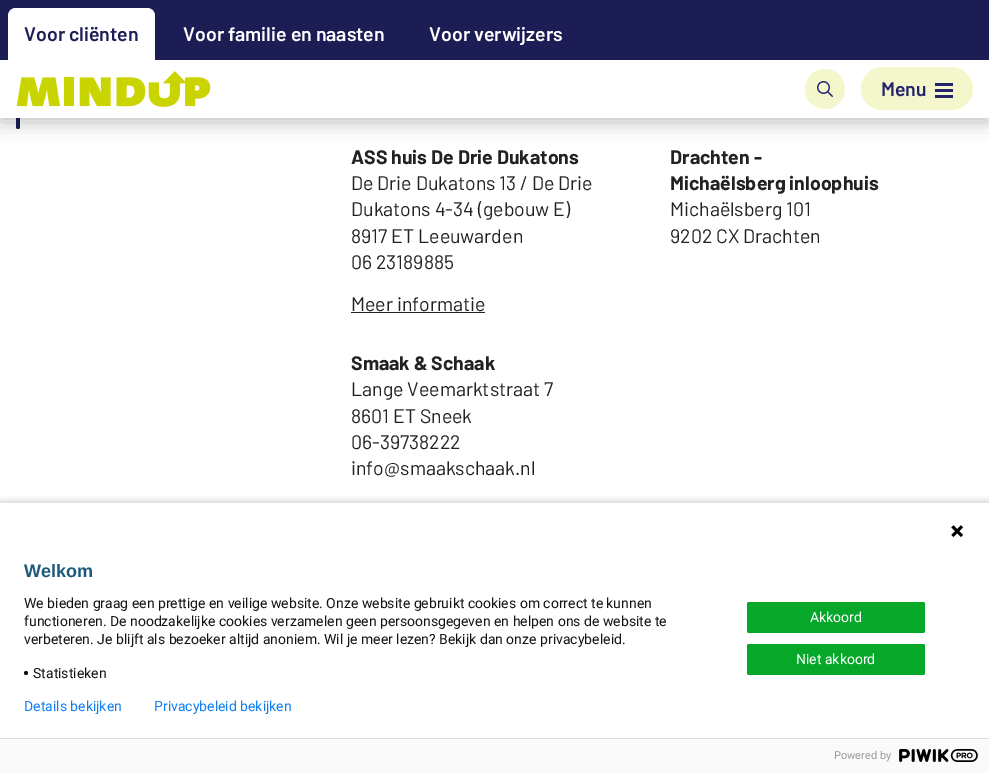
%!PS-Adobe-3.0
%%BoundingBox: 0 0 989 773
%%LanguageLevel: 3
%%Pages: 1
%%EndComments
%%BeginProlog
/setalpha { dup .setfillconstantalpha .setstrokeconstantalpha } def
/rrect { 5 dict begin { /r /h /w /y /x } { exch def } forall
  x r add y moveto x w add y 2 copy h add r arct x w add y h add x 1 index r arct
  x y h add x y r arct x y 2 copy exch w add exch r arct closepath end } def
/softshadow { 12 dict begin { /a /b /q /h /w /y /x } { exch def } forall gsave /was 0 def
  9 -2 -9 { dup b mul 4 div /e exch def 1 sub .425 mul 2.718 exch exp 1 add a .99 .min exch div /now exch def
    1 1 now sub 1 was sub div sub setalpha /was now def
    w h .min e 2 mul add 0 gt { x e sub y e sub w e 2 mul add h e 2 mul add
      q e add b .6 mul add w h .min 2 div e add .min 0 .max rrect fill } if } for grestore end } def
/drawimage { 5 dict begin { /h /w /y /x /name } { exch def } forall
  gsave x y translate w h scale
  w h 8 [w 0 0 h 0 0] name (r) file false 3 colorimage grestore end } def
%%EndProlog
%%BeginSetup
<< /PageSize [989 773] /PageUsesTransparency true >> setpagedevice
%%EndSetup
%%Page: 1 1
0 .pushpdf14devicefilter
0 773 translate 1 -1 scale
4 setmiterlimit
1 setgray
0 0 989 773 rectfill
0.114 0.114 0.337 setrgbcolor
16 91 4 38 2 rrect fill
0 setgray
0 63 989 59 0 9.5 0.25 softshadow
0.114 0.114 0.337 setrgbcolor
0 0 989 60 rectfill
1 setgray
newpath 16 8 moveto 147 8 lineto 151.5 8 155 11.5 155 16 curveto 155 60 lineto 8 60 lineto 8 16 lineto 8 11.5 11.5 8 16 8 curveto closepath fill
0 60 989 58 rectfill
(images/1.raw) 16 71 195 36 drawimage
0.957 0.965 0.8 setrgbcolor
newpath 825 89 20 0 360 arc closepath fill
(images/2.raw) 817 81 16 16 drawimage
861 67 112 43 21.5 rrect fill
0.141 0.141 0.424 setrgbcolor
935 83 18 3 rectfill
935 89 18 3 rectfill
935 95 18 3 rectfill
0.133 setgray
351 312 134 1 rectfill
0 setgray
-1 500 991 272 0 2.5 0.14 softshadow
1 setgray
0 503 989 235 rectfill
(images/3.raw) 951 525 13 13 drawimage
0.075 setgray
newpath 26 673 2 0 360 arc closepath fill
0.027 0.659 0.165 setrgbcolor
747 602 178 31 2 rrect fill
747 644 178 31 2 rrect fill
0.98 setgray
0 739 989 34 rectfill
0.867 setgray
0 738 989 1 rectfill
(images/4.raw) 899 749 79 13 drawimage
/Barlow-SemiBold [19.5 0 0 -19.5 0 0] selectfont
0.114 0.114 0.337 setrgbcolor
24 41 moveto (Voor cliënten) show
1 setgray
183 41 moveto (Voor familie en naasten) show
429 41 moveto (Voor verwijzers) show
0.141 0.141 0.424 setrgbcolor
881 96 moveto (Menu) show
/Barlow-Bold [19.5 0 0 -19.5 0 0] selectfont
0.133 setgray
351 164 moveto (ASS huis De Drie Dukatons) show
/Barlow-Regular [19.5 0 0 -19.5 0 0] selectfont
351 190 moveto (De Drie Dukatons 13 / De Drie) show
351 216 moveto (Dukatons 4-34 \(gebouw E\)) show
351 243 moveto (8917 ET Leeuwarden) show
351 269 moveto (06 23189885) show
351 311 moveto (Meer informatie) show
/Barlow-Bold [19.5 0 0 -19.5 0 0] selectfont
670 164 moveto (Drachten -) show
670 190 moveto (Michaëlsberg inloophuis) show
/Barlow-Regular [19.5 0 0 -19.5 0 0] selectfont
670 216 moveto (Michaëlsberg 101) show
670 243 moveto (9202 CX Drachten) show
/Barlow-Bold [19.5 0 0 -19.5 0 0] selectfont
351 370 moveto (Smaak & Schaak) show
/Barlow-Regular [19.5 0 0 -19.5 0 0] selectfont
351 396 moveto (Lange Veemarktstraat 7) show
351 423 moveto (8601 ET Sneek) show
351 449 moveto (06-39738222) show
351 475 moveto (info@smaakschaak.nl) show
/LiberationSans-Bold [18 0 0 -18 0 0] selectfont
0.11 0.353 0.475 setrgbcolor
24 577 moveto (Welkom) show
/Roboto-Regular [14 0 0 -14 0 0] selectfont
0.075 setgray
24 608 moveto (We bieden graag een prettige en veilige website. Onze website gebruikt cookies om correct te kunnen) show
24 626 moveto (functioneren. De noodzakelijke cookies verzamelen geen persoonsgegeven en helpen ons de website te) show
24 644 moveto (verbeteren. Je blijft als bezoeker altijd anoniem. Wil je meer lezen? Bekijk dan onze privacybeleid.) show
33 678 moveto (Statistieken) show
1 setgray
810 622 moveto (Akkoord) show
796 664 moveto (Niet akkoord) show
0.063 0.494 0.945 setrgbcolor
24 711 moveto (Details bekijken) show
154 711 moveto (Privacybeleid bekijken) show
/Roboto-Regular [11 0 0 -11 0 0] selectfont
0.6 setgray
834 759 moveto (Powered by) show
.poppdf14devicefilter showpage
%%EOF
